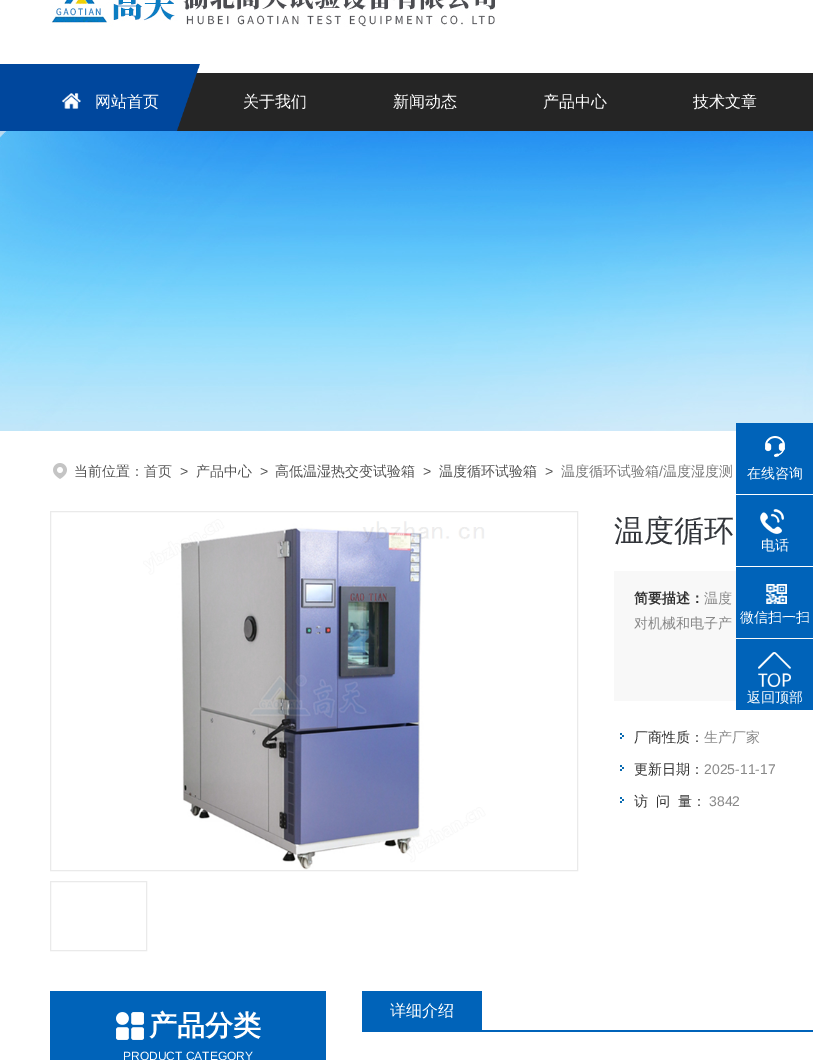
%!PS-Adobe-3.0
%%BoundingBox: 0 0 813 1060
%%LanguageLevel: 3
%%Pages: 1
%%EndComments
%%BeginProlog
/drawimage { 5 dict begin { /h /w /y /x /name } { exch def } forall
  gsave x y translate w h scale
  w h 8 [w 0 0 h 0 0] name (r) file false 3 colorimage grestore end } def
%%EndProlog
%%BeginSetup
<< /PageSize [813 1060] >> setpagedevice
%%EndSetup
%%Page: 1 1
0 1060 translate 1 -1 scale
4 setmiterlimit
1 setgray
0 0 813 1060 rectfill
(images/1.raw) 51 0 444 27 drawimage
(images/2.raw) 0 64 813 67 drawimage
(images/3.raw) 161 64 39 67 drawimage
(images/4.raw) 62 93 19 16 drawimage
(images/5.raw) 0 131 813 300 drawimage
(images/6.raw) 53 463 14 16 drawimage
0 0.388 0.725 setrgbcolor
736 423 77 71 rectfill
(images/7.raw) 765 436 20 21 drawimage
736 495 77 71 rectfill
(images/8.raw) 760 509 24 25 drawimage
0.973 setgray
614 571 199 130 rectfill
0 0.388 0.725 setrgbcolor
736 567 77 71 rectfill
(images/9.raw) 766 584 21 20 drawimage
736 639 77 71 rectfill
(images/10.raw) 758 652 33 35 drawimage
0.918 setgray
50.5 511.5 527 359 rectstroke
(images/11.raw) 143 519 343 351 drawimage
50.5 881.5 96 69 rectstroke
(images/12.raw) 620 733 4 6 drawimage
(images/12.raw) 620 765 4 6 drawimage
(images/12.raw) 620 797 4 6 drawimage
0 0.388 0.725 setrgbcolor
50 991 276 69 rectfill
(images/13.raw) 116 1012 28 28 drawimage
362 1030 451 2 rectfill
362 991 120 39 rectfill
/WenQuanYiZenHei-Medium [16 0 0 -16 0 0] selectfont
1 setgray
95 107 moveto (网站首页) show
243 107 moveto (关于我们) show
393 107 moveto (新闻动态) show
543 107 moveto (产品中心) show
693 107 moveto (技术文章) show
/WenQuanYiZenHei-Medium [14 0 0 -14 0 0] selectfont
0.329 setgray
74 476 moveto (当前位置：首页) show
/LiberationSans-Regular [14 0 0 -14 0 0] selectfont
180 476 moveto (>) show
/WenQuanYiZenHei-Medium [14 0 0 -14 0 0] selectfont
196 476 moveto (产品中心) show
/LiberationSans-Regular [14 0 0 -14 0 0] selectfont
260 476 moveto (>) show
/WenQuanYiZenHei-Medium [14 0 0 -14 0 0] selectfont
275 476 moveto (高低温湿热交变试验箱) show
/LiberationSans-Regular [14 0 0 -14 0 0] selectfont
423 476 moveto (>) show
/WenQuanYiZenHei-Medium [14 0 0 -14 0 0] selectfont
439 476 moveto (温度循环试验箱) show
/LiberationSans-Regular [14 0 0 -14 0 0] selectfont
545 476 moveto (>) show
/WenQuanYiZenHei-Medium [14 0 0 -14 0 0] selectfont
0.475 setgray
561 476 moveto (温度循环试验箱) show
/LiberationSans-Regular [14 0 0 -14 0 0] selectfont
659 476 moveto (/) show
/WenQuanYiZenHei-Medium [14 0 0 -14 0 0] selectfont
663 476 moveto (温度湿度测) show
1 setgray
747 478 moveto (在线咨询) show
761 550 moveto (电话) show
740 622 moveto (微信扫一扫) show
747 702 moveto (返回顶部) show
/WenQuanYiZenHei-Medium [30 0 0 -30 0 0] selectfont
0.196 0.208 0.227 setrgbcolor
614 541 moveto (温度循环) show
/WenQuanYiZenHei-Bold [14 0 0 -14 0 0] selectfont
0.2 setgray
634 603 moveto (简要描述：) show
/WenQuanYiZenHei-Medium [14 0 0 -14 0 0] selectfont
0.533 setgray
704 603 moveto (温度) show
634 628 moveto (对机械和电子产) show
0.2 setgray
634 742 moveto (厂商性质：) show
0.533 setgray
704 742 moveto (生产厂家) show
0.2 setgray
634 774 moveto (更新日期：) show
/LiberationSans-Regular [14 0 0 -14 0 0] selectfont
0.533 setgray
704 774 moveto (2025-11-17) show
/WenQuanYiZenHei-Medium [14 0 0 -14 0 0] selectfont
0.2 setgray
634 806 moveto (访) show
656 806 moveto (问) show
678 806 moveto (量：) show
/LiberationSans-Regular [14 0 0 -14 0 0] selectfont
0.533 setgray
709 806 moveto (3842) show
/WenQuanYiZenHei-Bold [28 0 0 -28 0 0] selectfont
1 setgray
149 1035 moveto (产品分类) show
/LiberationSans-Regular [12 0 0 -12 0 0] selectfont
123 1060 moveto (PRODUCT CATEGORY) show
/WenQuanYiZenHei-Medium [16 0 0 -16 0 0] selectfont
390 1016 moveto (详细介绍) show
showpage
%%EOF
